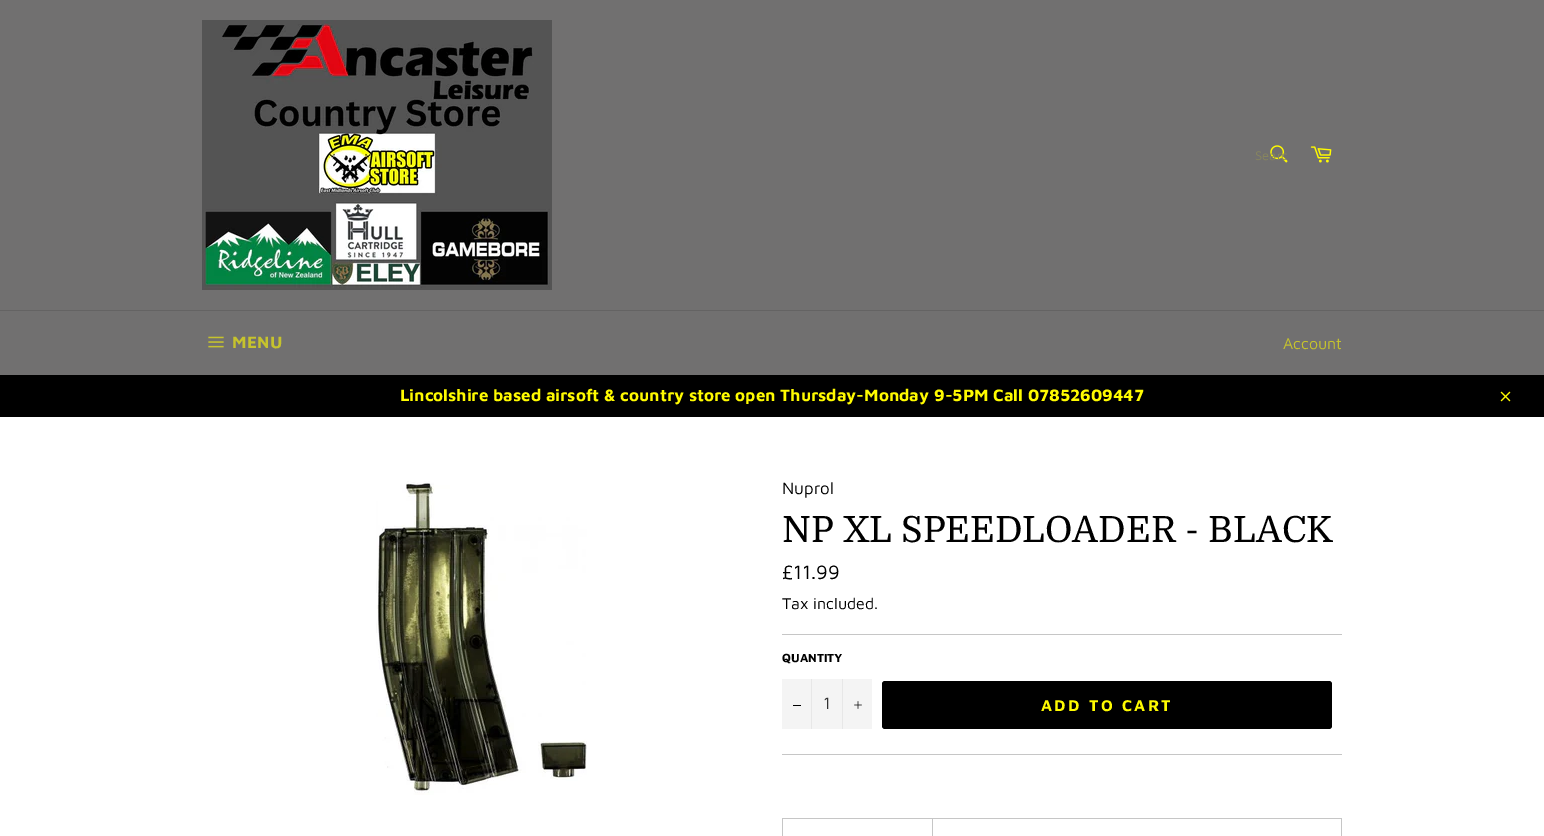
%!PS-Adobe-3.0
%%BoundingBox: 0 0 1544 836
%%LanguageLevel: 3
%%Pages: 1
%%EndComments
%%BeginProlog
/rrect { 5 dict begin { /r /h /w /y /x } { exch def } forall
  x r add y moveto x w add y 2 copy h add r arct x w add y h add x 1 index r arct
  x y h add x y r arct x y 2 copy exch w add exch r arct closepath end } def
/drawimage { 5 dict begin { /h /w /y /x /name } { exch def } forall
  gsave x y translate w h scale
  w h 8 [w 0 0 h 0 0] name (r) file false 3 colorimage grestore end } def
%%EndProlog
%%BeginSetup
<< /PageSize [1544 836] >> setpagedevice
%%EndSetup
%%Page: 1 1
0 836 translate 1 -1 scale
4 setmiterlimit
0.443 0.439 0.439 setrgbcolor
0 0 1544 836 rectfill
(images/1.raw) 202 20 350 270 drawimage
(images/2.raw) 1270 145 18 18 drawimage
(images/3.raw) 1310 146 22 17 drawimage
0.392 0.388 0.388 setrgbcolor
0 310 1544 1 rectfill
(images/4.raw) 208 336 16 12 drawimage
0 setgray
0 375 1544 42 rectfill
(images/5.raw) 1500 391 11 11 drawimage
1 setgray
0 417 1544 419 rectfill
(images/6.raw) 376 481 211 314 drawimage
0.776 setgray
782 634 560 1 rectfill
0.957 setgray
782 679 90 50 rectfill
0.906 setgray
811 679 1 50 rectfill
0 setgray
793 705 8 1 rectfill
0.906 setgray
842 679 1 50 rectfill
(images/7.raw) 854 701 8 8 drawimage
0 setgray
882 681 450 48 3 rrect fill
0.776 setgray
782 754 560 1 rectfill
932 818 410 1 rectfill
932 818 1 18 rectfill
782 818 151 1 rectfill
782 818 1 18 rectfill
1341 818 1 18 rectfill
/MavenPro-Regular [13 0 0 -13 0 0] selectfont
0.533 0.525 0.369 setrgbcolor
1255 160 moveto (Searc) show
/MavenPro-Bold [17 0 0 -17 0 0] selectfont
0.776 0.765 0.176 setrgbcolor
232 348 moveto 0.5 0 (MENU) ashow
/MavenPro-Regular [16 0 0 -16 0 0] selectfont
1283 349 moveto (Account) show
/MavenPro-Bold [17 0 0 -17 0 0] selectfont
1 0.984 0 setrgbcolor
400 401 moveto (Lincolshire based airsoft & country store open Thursday-Monday 9-5PM Call 07852609447) show
/MavenPro-Regular [17 0 0 -17 0 0] selectfont
0 setgray
782 494 moveto (Nuprol) show
/Domine-Regular [36 0 0 -36 0 0] selectfont
782 542 moveto (NP XL SPEEDLOADER - BLACK) show
/MavenPro-Regular [20 0 0 -20 0 0] selectfont
782 579 moveto (£11.99) show
/MavenPro-Regular [16 0 0 -16 0 0] selectfont
782 609 moveto (Tax included.) show
/MavenPro-Bold [12 0 0 -12 0 0] selectfont
782 662 moveto (QUANTITY) show
/MavenPro-Regular [17 0 0 -17 0 0] selectfont
0.2 setgray
823 709 moveto (1) show
/MavenPro-Bold [16 0 0 -16 0 0] selectfont
1 0.984 0 setrgbcolor
1041 711 moveto 2.4 0 (ADD TO CART) ashow
showpage
%%EOF
